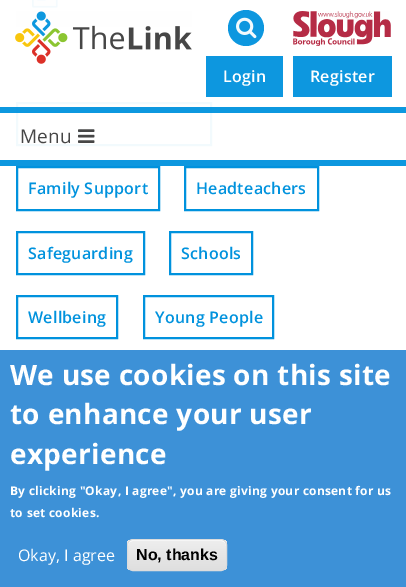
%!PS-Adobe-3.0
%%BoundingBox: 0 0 406 587
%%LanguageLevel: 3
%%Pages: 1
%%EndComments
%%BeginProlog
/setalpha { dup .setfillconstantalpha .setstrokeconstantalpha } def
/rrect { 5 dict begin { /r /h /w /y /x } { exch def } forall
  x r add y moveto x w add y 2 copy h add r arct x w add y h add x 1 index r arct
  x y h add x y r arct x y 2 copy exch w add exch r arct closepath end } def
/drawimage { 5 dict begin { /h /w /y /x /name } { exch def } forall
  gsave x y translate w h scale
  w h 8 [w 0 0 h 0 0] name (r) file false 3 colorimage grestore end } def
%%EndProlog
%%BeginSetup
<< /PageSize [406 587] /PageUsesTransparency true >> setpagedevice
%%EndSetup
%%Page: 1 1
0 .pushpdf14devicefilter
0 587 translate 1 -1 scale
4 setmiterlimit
1 setgray
0 0 406 587 rectfill
0.051 0.592 0.875 setrgbcolor
0 160 406 6 rectfill
(images/1.raw) 15 11 177 53 drawimage
newpath 246 28 18 0 360 arc closepath fill
(images/2.raw) 236 17 21 22 drawimage
(images/3.raw) 293 11 98 35 drawimage
206 56 77 41 rectfill
293 56 99 41 rectfill
0.949 0.98 0.992 setrgbcolor
2 setlinewidth
17 103 194 42 rectstroke
0.95 setalpha
0 0.573 0.867 setrgbcolor
0 107 406 6 rectfill
1 setalpha
(images/4.raw) 78 129 17 14 drawimage
(images/5.raw) 32 0 26 8 drawimage
17 167 142 43 rectstroke
185 167 133 43 rectstroke
17 232 127 42 rectstroke
170 232 82 42 rectstroke
17 296 100 42 rectstroke
144 296 129 42 rectstroke
0.239 0.569 0.843 setrgbcolor
0 350 406 237 rectfill
gsave
127 539 100 32 6 rrect clip newpath
gsave newpath 127 540 moveto 227 540 lineto 227 570 lineto 127 570 lineto closepath clip newpath
<< /ShadingType 2 /ColorSpace /DeviceRGB /Coords [177 540 177 570] /Extend [true true] /Function << /FunctionType 3 /Domain [0 1] /Functions [<< /FunctionType 2 /Domain [0 1] /C0 [0.929 0.929 0.929] /C1 [0.929 0.929 0.929] /N 1 >> << /FunctionType 2 /Domain [0 1] /C0 [0.929 0.929 0.929] /C1 [0.875 0.875 0.875] /N 1 >>] /Bounds [0.05] /Encode [0 1 0 1] >> >> shfill grestore
grestore
1 setgray
newpath 133 541 moveto 221 541 lineto 224 541 226 543 226 546 curveto 226 536 212 540 206 540 curveto 148 540 lineto 142 540 128 536 128 546 curveto 128 543 130 541 133 541 curveto closepath fill
0.863 setgray
1 setlinewidth
127.5 539.5 99 31 5.5 rrect stroke
/OpenSans-SemiBold [16 0 0 -16 0 0] selectfont
1 setgray
223 82 moveto 0.25 0 (Login) ashow
310 82 moveto 0.25 0 (Register) ashow
/OpenSans-Regular [19 0 0 -19 0 0] selectfont
0.275 setgray
20 143 moveto 0.25 0 (Menu) ashow
/OpenSans-SemiBold [16 0 0 -16 0 0] selectfont
0 0.573 0.867 setrgbcolor
28 194 moveto 0.25 0 (Family Support) ashow
196 194 moveto 0.25 0 (Headteachers) ashow
28 259 moveto 0.25 0 (Safeguarding) ashow
181 259 moveto 0.25 0 (Schools) ashow
28 323 moveto 0.25 0 (Wellbeing) ashow
155 323 moveto 0.25 0 (Young People) ashow
/OpenSans-Bold [28 0 0 -28 0 0] selectfont
1 setgray
10 385 moveto 0.25 0 (We use cookies on this site) ashow
10 424 moveto 0.25 0 (to enhance your user) ashow
10 464 moveto 0.25 0 (experience) ashow
/OpenSans-Bold [12 0 0 -12 0 0] selectfont
10 495 moveto 0.25 0 (By clicking "Okay, I agree", you are giving your consent for us) ashow
10 517 moveto 0.25 0 (to set cookies.) ashow
/OpenSans-Regular [16 0 0 -16 0 0] selectfont
18 561 moveto (Okay, I agree) show
/LiberationSans-Bold [16 0 0 -16 0 0] selectfont
0 setgray
136 560 moveto (No, thanks) show
.poppdf14devicefilter showpage
%%EOF
